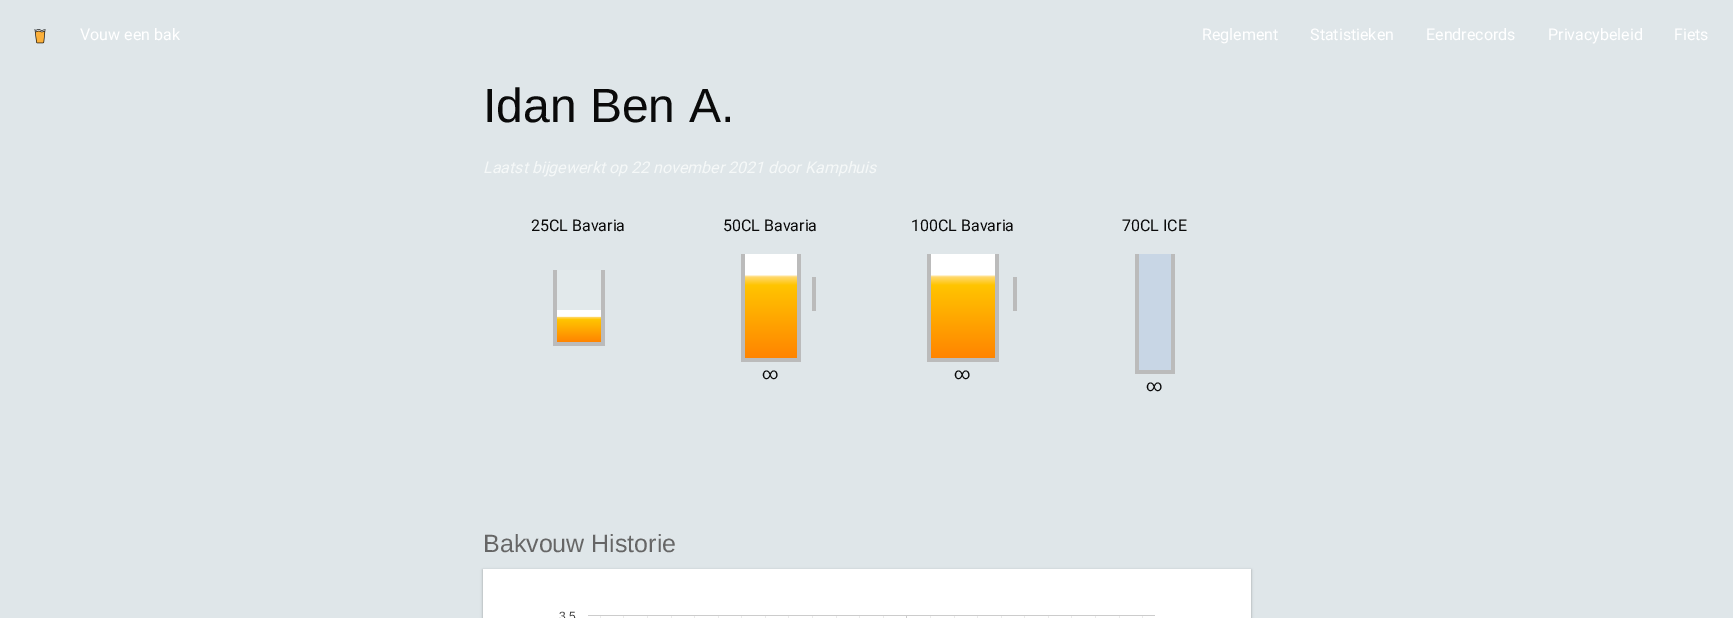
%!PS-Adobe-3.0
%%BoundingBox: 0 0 1733 618
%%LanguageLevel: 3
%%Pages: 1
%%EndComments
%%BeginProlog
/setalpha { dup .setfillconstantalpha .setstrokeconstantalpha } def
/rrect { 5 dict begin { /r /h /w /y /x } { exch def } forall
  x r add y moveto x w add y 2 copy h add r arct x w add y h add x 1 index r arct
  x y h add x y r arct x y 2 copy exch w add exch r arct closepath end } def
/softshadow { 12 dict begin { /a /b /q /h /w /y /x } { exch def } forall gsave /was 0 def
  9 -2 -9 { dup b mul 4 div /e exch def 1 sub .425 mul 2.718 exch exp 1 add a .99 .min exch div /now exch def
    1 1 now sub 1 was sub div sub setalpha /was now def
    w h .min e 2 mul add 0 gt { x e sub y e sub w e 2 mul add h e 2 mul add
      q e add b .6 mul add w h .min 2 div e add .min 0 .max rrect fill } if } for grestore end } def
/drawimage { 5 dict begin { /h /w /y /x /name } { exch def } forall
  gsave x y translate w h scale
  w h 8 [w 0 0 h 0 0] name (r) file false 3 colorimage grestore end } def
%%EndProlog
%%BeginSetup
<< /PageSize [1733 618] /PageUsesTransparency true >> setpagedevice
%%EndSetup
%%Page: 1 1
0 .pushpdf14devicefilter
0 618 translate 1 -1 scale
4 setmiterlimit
0.875 0.902 0.914 setrgbcolor
0 0 1733 618 rectfill
(images/1.raw) 34 29 12 15 drawimage
0.886 0.914 0.922 setrgbcolor
557 270 44 40 rectfill
0.733 setgray
601 270 4 76 rectfill
553 342 52 4 rectfill
553 270 4 76 rectfill
gsave newpath 557 310 moveto 601 310 lineto 601 342 lineto 557 342 lineto closepath clip newpath
<< /ShadingType 2 /ColorSpace /DeviceRGB /Coords [579 342 579 310] /Extend [true true] /Function << /FunctionType 3 /Domain [0 1] /Functions [<< /FunctionType 2 /Domain [0 1] /C0 [1 0.518 0] /C1 [1 0.769 0] /N 1 >> << /FunctionType 2 /Domain [0 1] /C0 [1 0.769 0] /C1 [1 0.851 0.431] /N 1 >> << /FunctionType 2 /Domain [0 1] /C0 [1 0.851 0.431] /C1 [1 1 1] /N 1 >> << /FunctionType 2 /Domain [0 1] /C0 [1 1 1] /C1 [1 1 1] /N 1 >>] /Bounds [0.7 0.78 0.8] /Encode [0 1 0 1 0 1 0 1] >> >> shfill grestore
797 254 4 108 rectfill
741 358 60 4 rectfill
741 254 4 108 rectfill
gsave newpath 745 254 moveto 797 254 lineto 797 358 lineto 745 358 lineto closepath clip newpath
<< /ShadingType 2 /ColorSpace /DeviceRGB /Coords [771 358 771 254] /Extend [true true] /Function << /FunctionType 3 /Domain [0 1] /Functions [<< /FunctionType 2 /Domain [0 1] /C0 [1 0.518 0] /C1 [1 0.769 0] /N 1 >> << /FunctionType 2 /Domain [0 1] /C0 [1 0.769 0] /C1 [1 0.851 0.431] /N 1 >> << /FunctionType 2 /Domain [0 1] /C0 [1 0.851 0.431] /C1 [1 1 1] /N 1 >> << /FunctionType 2 /Domain [0 1] /C0 [1 1 1] /C1 [1 1 1] /N 1 >>] /Bounds [0.7 0.78 0.8] /Encode [0 1 0 1 0 1 0 1] >> >> shfill grestore
812 277 4 34 rectfill
995 254 4 108 rectfill
927 358 72 4 rectfill
927 254 4 108 rectfill
gsave newpath 931 254 moveto 995 254 lineto 995 358 lineto 931 358 lineto closepath clip newpath
<< /ShadingType 2 /ColorSpace /DeviceRGB /Coords [963 358 963 254] /Extend [true true] /Function << /FunctionType 3 /Domain [0 1] /Functions [<< /FunctionType 2 /Domain [0 1] /C0 [1 0.518 0] /C1 [1 0.769 0] /N 1 >> << /FunctionType 2 /Domain [0 1] /C0 [1 0.769 0] /C1 [1 0.851 0.431] /N 1 >> << /FunctionType 2 /Domain [0 1] /C0 [1 0.851 0.431] /C1 [1 1 1] /N 1 >> << /FunctionType 2 /Domain [0 1] /C0 [1 1 1] /C1 [1 1 1] /N 1 >>] /Bounds [0.7 0.78 0.8] /Encode [0 1 0 1 0 1 0 1] >> >> shfill grestore
1013 277 4 34 rectfill
1171 254 4 120 rectfill
1135 370 40 4 rectfill
1135 254 4 120 rectfill
0.784 0.839 0.898 setrgbcolor
1139 254 32 116 rectfill
0 setgray
483 570 768 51 0 1 0.24 softshadow
483 570 768 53 0 1.5 0.12 softshadow
1 setgray
483 569 768 49 rectfill
(images/2.raw) 588 615 567 3 drawimage
/Roboto-Regular [16 0 0 -16 0 0] selectfont
80 40 moveto (Vouw een bak) show
1202 40 moveto (Reglement) show
1310 40 moveto (Statistieken) show
1426 40 moveto (Eendrecords) show
1548 40 moveto (Privacybeleid) show
1674 40 moveto (Fiets) show
/LiberationSans-Regular [48 0 0 -48 0 0] selectfont
0.039 setgray
483 122 moveto (Idan Ben A.) show
/Roboto-Italic [16 0 0 -16 0 0] selectfont
0.961 0.973 0.973 setrgbcolor
483 173 moveto (Laatst bijgewerkt op 22 november 2021 door Kamphuis) show
/Roboto-Regular [16 0 0 -16 0 0] selectfont
0.039 setgray
531 231 moveto (25CL Bavaria) show
723 231 moveto (50CL Bavaria) show
762 379 moveto (∞) show
911 231 moveto (100CL Bavaria) show
954 379 moveto (∞) show
1122 231 moveto (70CL ICE) show
1146 391 moveto (∞) show
/LiberationSans-Regular [25 0 0 -25 0 0] selectfont
0.4 setgray
483 552 moveto (Bakvouw Historie) show
/LiberationSans-Regular [12 0 0 -12 0 0] selectfont
0.267 setgray
559 620 moveto (3.5) show
.poppdf14devicefilter showpage
%%EOF
